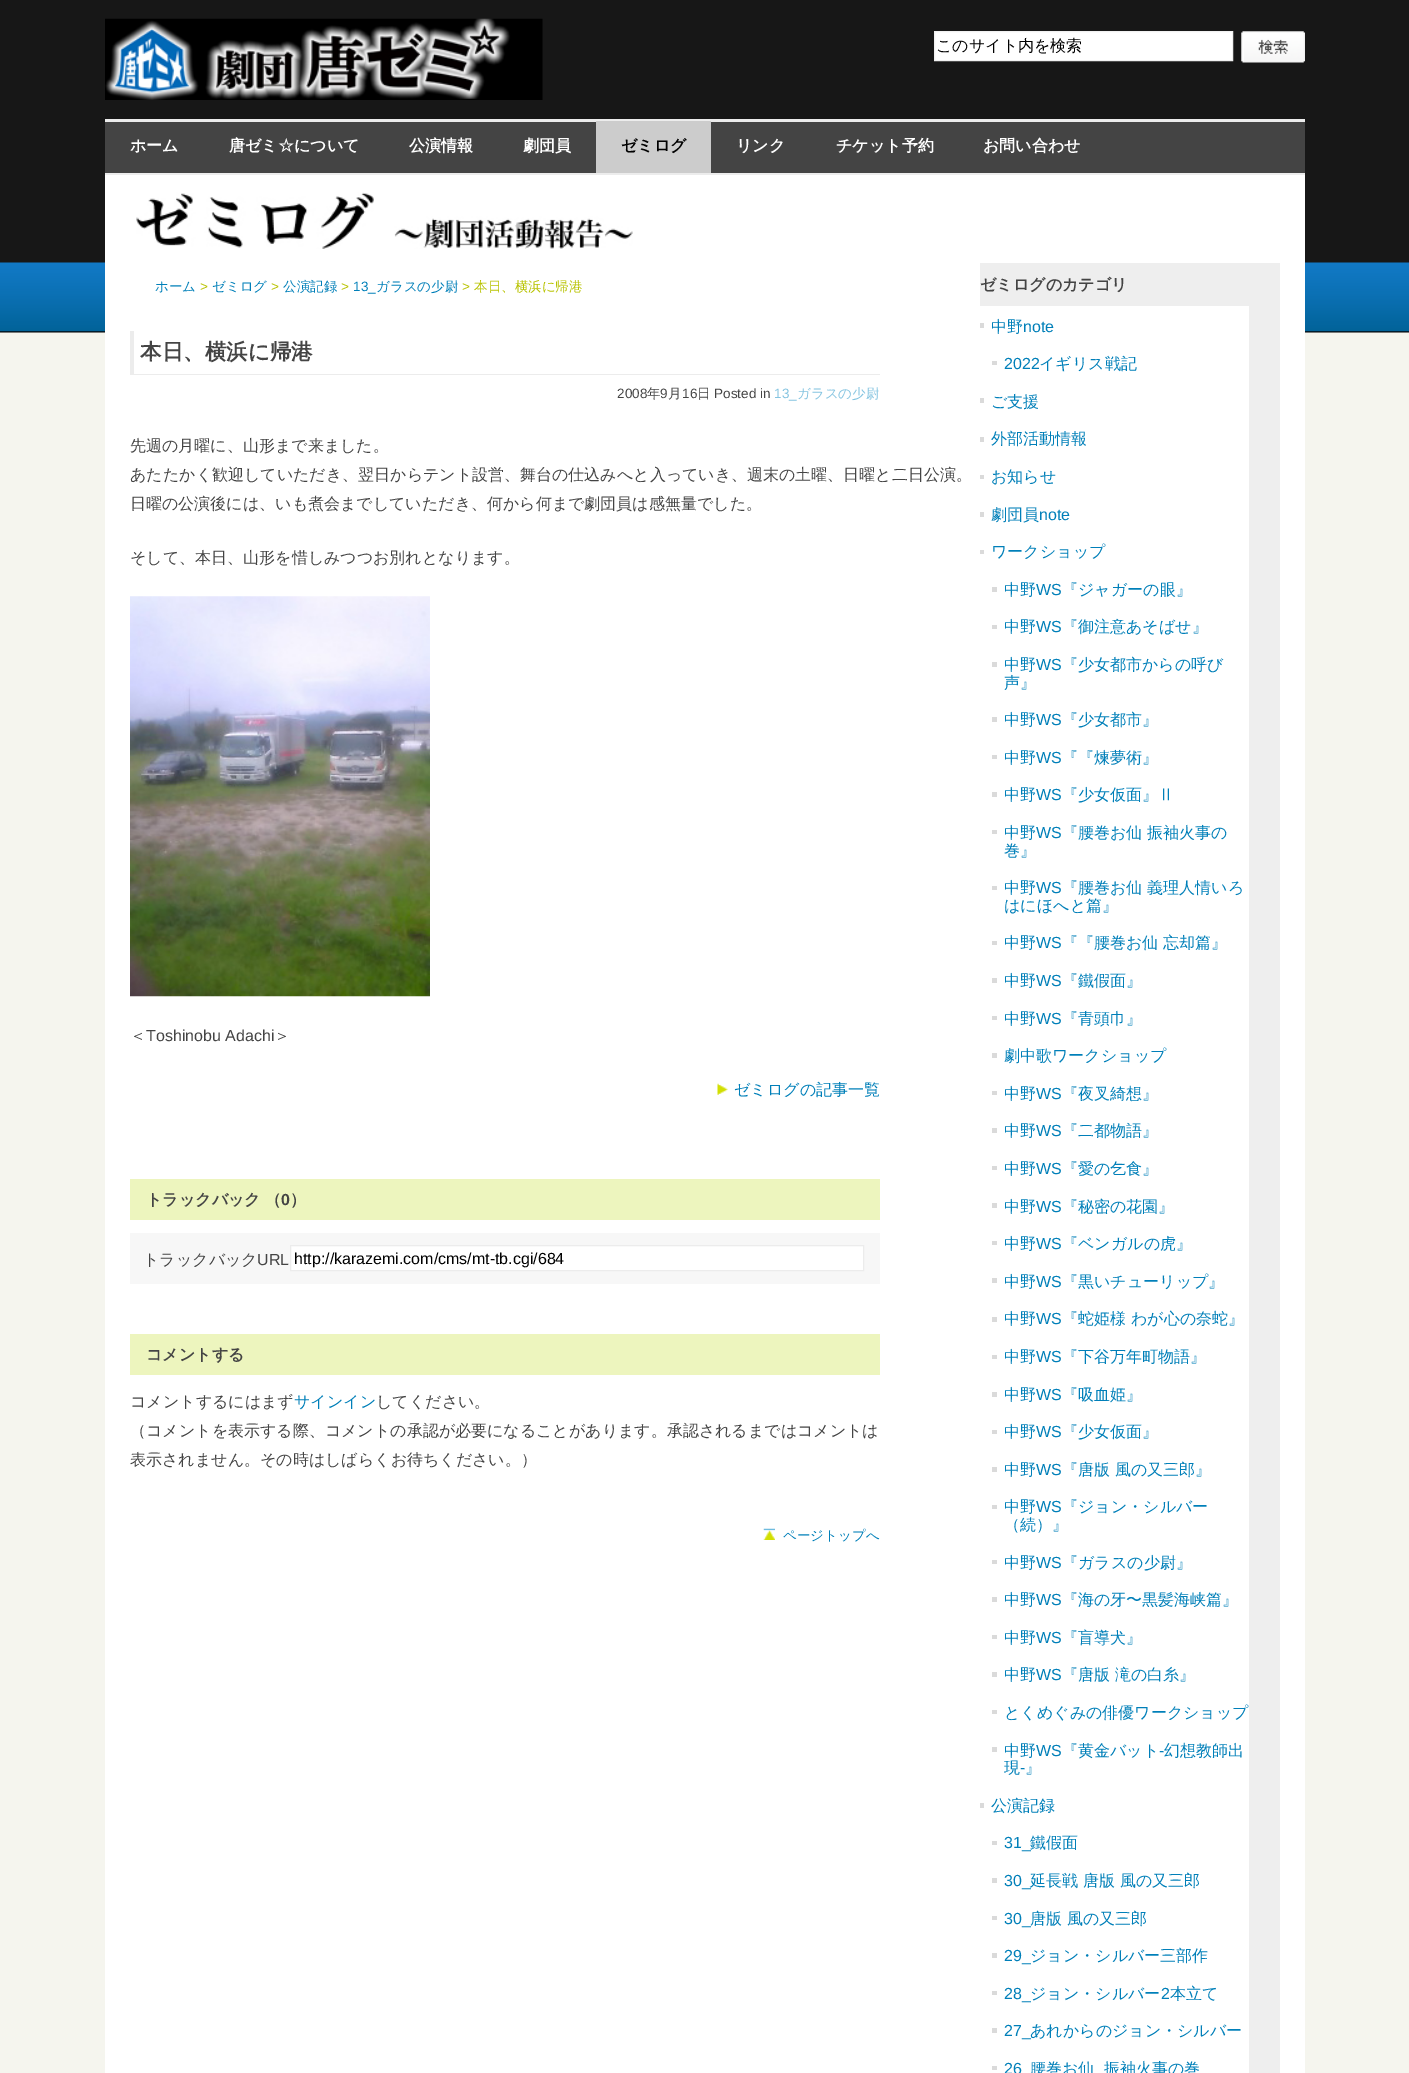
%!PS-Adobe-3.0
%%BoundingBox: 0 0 1409 2073
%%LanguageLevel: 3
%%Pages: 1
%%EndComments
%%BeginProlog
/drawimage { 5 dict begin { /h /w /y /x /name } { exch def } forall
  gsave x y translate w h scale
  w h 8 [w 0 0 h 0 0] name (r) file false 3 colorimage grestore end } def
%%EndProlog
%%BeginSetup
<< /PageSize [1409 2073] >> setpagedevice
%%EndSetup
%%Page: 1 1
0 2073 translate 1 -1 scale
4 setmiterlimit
0.961 0.961 0.933 setrgbcolor
0 0 1409 2073 rectfill
(images/1.raw) 0 0 1409 333 drawimage
(images/2.raw) 105 18 438 82 drawimage
1 setgray
newpath 934.5 31.5 moveto 1232.5 31.5 lineto 1232.5 60.5 lineto 934.5 60.5 lineto closepath gsave fill grestore
0.945 setgray
stroke
(images/3.raw) 1241 31 64 32 drawimage
0.267 setgray
105 122 1200 51 rectfill
0.925 setgray
105 119 1200 3 rectfill
105 173 1200 2 rectfill
0.8 setgray
596 121 115 52 rectfill
1 setgray
105 175 1200 1898 rectfill
(images/4.raw) 136 192 497 57 drawimage
0.925 setgray
130 374 750 1 rectfill
130 331 4 44 rectfill
(images/5.raw) 130 596 300 401 drawimage
(images/6.raw) 717 1083 11 12 drawimage
0.929 0.961 0.745 setrgbcolor
130 1179 750 41 rectfill
0.969 setgray
130 1233 750 51 rectfill
1 setgray
newpath 290.5 1245.5 moveto 863.5 1245.5 lineto 863.5 1270.5 lineto 290.5 1270.5 lineto closepath gsave fill grestore
0.925 setgray
stroke
0.929 0.961 0.745 setrgbcolor
130 1334 750 41 rectfill
(images/7.raw) 763 1528 12 12 drawimage
0.933 setgray
980 263 300 1810 rectfill
1 setgray
980 306 269 1767 rectfill
0.855 setgray
980 323 4 5 rectfill
992 361 5 4 rectfill
980 398 4 5 rectfill
980 437 4 5 rectfill
980 475 4 4 rectfill
980 512 4 5 rectfill
980 550 4 4 rectfill
992 587 5 5 rectfill
992 625 5 4 rectfill
992 662 5 5 rectfill
992 717 5 5 rectfill
992 755 5 4 rectfill
992 792 5 5 rectfill
992 830 5 4 rectfill
992 886 5 4 rectfill
992 941 5 4 rectfill
992 978 5 5 rectfill
992 1016 5 4 rectfill
992 1053 5 5 rectfill
992 1091 5 4 rectfill
992 1128 5 5 rectfill
992 1166 5 4 rectfill
992 1203 5 5 rectfill
992 1241 5 4 rectfill
992 1278 5 5 rectfill
992 1317 5 5 rectfill
992 1355 5 4 rectfill
992 1392 5 5 rectfill
992 1430 5 4 rectfill
992 1467 5 5 rectfill
992 1505 5 4 rectfill
992 1560 5 4 rectfill
992 1597 5 5 rectfill
992 1635 5 4 rectfill
992 1672 5 5 rectfill
992 1710 5 4 rectfill
992 1747 5 5 rectfill
980 1803 4 5 rectfill
992 1841 5 4 rectfill
992 1878 5 5 rectfill
992 1916 5 4 rectfill
992 1953 5 5 rectfill
992 1991 5 4 rectfill
992 2028 5 5 rectfill
992 2066 5 4 rectfill
/WenQuanYiZenHei-Medium [16 0 0 -16 0 0] selectfont
0 setgray
936 51 moveto (このサイト内を検索) show
/WenQuanYiZenHei-Bold [16 0 0 -16 0 0] selectfont
1 setgray
130 151 moveto (ホーム) show
229 151 moveto (唐ゼミ☆について) show
409 151 moveto (公演情報) show
523 151 moveto (劇団員) show
0 setgray
621 151 moveto (ゼミログ) show
1 setgray
736 151 moveto (リンク) show
836 151 moveto (チケット予約) show
983 151 moveto (お問い合わせ) show
/WenQuanYiZenHei-Medium [13.5 0 0 -13.5 0 0] selectfont
0 0.498 0.725 setrgbcolor
155 291 moveto (ホーム) show
/LiberationSans-Regular [13.5 0 0 -13.5 0 0] selectfont
0.722 0.765 0 setrgbcolor
200 291 moveto (>) show
/WenQuanYiZenHei-Medium [13.5 0 0 -13.5 0 0] selectfont
0 0.498 0.725 setrgbcolor
212 291 moveto (ゼミログ) show
/LiberationSans-Regular [13.5 0 0 -13.5 0 0] selectfont
0.722 0.765 0 setrgbcolor
271 291 moveto (>) show
/WenQuanYiZenHei-Medium [13.5 0 0 -13.5 0 0] selectfont
0 0.498 0.725 setrgbcolor
283 291 moveto (公演記録) show
/LiberationSans-Regular [13.5 0 0 -13.5 0 0] selectfont
0.722 0.765 0 setrgbcolor
341 291 moveto (>) show
0 0.498 0.725 setrgbcolor
353 291 moveto (13_) show
/WenQuanYiZenHei-Medium [13.5 0 0 -13.5 0 0] selectfont
376 291 moveto (ガラスの少尉) show
/LiberationSans-Regular [13.5 0 0 -13.5 0 0] selectfont
0.722 0.765 0 setrgbcolor
462 291 moveto (>) show
/WenQuanYiZenHei-Medium [13.5 0 0 -13.5 0 0] selectfont
474 291 moveto (本日、横浜に帰港) show
/WenQuanYiZenHei-Bold [21.5 0 0 -21.5 0 0] selectfont
0.267 setgray
140 359 moveto (本日、横浜に帰港) show
/LiberationSans-Regular [13.5 0 0 -13.5 0 0] selectfont
617 398 moveto (2008) show
/WenQuanYiZenHei-Medium [13.5 0 0 -13.5 0 0] selectfont
647 398 moveto (年) show
/LiberationSans-Regular [13.5 0 0 -13.5 0 0] selectfont
660 398 moveto (9) show
/WenQuanYiZenHei-Medium [13.5 0 0 -13.5 0 0] selectfont
668 398 moveto (月) show
/LiberationSans-Regular [13.5 0 0 -13.5 0 0] selectfont
682 398 moveto (16) show
/WenQuanYiZenHei-Medium [13.5 0 0 -13.5 0 0] selectfont
697 398 moveto (日) show
/LiberationSans-Regular [13.5 0 0 -13.5 0 0] selectfont
714 398 moveto (Posted in) show
0.518 0.769 0.882 setrgbcolor
774 398 moveto (13_) show
/WenQuanYiZenHei-Medium [13.5 0 0 -13.5 0 0] selectfont
797 398 moveto (ガラスの少尉) show
/WenQuanYiZenHei-Medium [16 0 0 -16 0 0] selectfont
0.267 setgray
130 451 moveto (先週の月曜に、山形まで来ました。) show
130 480 moveto (あたたかく歓迎していただき、翌日からテント設営、舞台の仕込みへと入っていき、週末の土曜、日曜と二日公演。) show
130 509 moveto (日曜の公演後には、いも煮会までしていただき、何から何まで劇団員は感無量でした。) show
130 563 moveto (そして、本日、山形を惜しみつつお別れとなります。) show
130 1041 moveto (＜) show
/LiberationSans-Regular [16 0 0 -16 0 0] selectfont
146 1041 moveto (Toshinobu Adachi) show
/WenQuanYiZenHei-Medium [16 0 0 -16 0 0] selectfont
274 1041 moveto (＞) show
0 0.498 0.725 setrgbcolor
734 1095 moveto (ゼミログの記事一覧) show
/WenQuanYiZenHei-Bold [16 0 0 -16 0 0] selectfont
0.267 setgray
146 1205 moveto (トラックバック （) show
/LiberationSans-Bold [16 0 0 -16 0 0] selectfont
281 1205 moveto (0) show
/WenQuanYiZenHei-Bold [16 0 0 -16 0 0] selectfont
290 1205 moveto (）) show
/WenQuanYiZenHei-Medium [16 0 0 -16 0 0] selectfont
143 1265 moveto (トラックバック) show
/LiberationSans-Regular [16 0 0 -16 0 0] selectfont
257 1265 moveto (URL) show
0 setgray
294 1264 moveto (http://karazemi.com/cms/mt-tb.cgi/684) show
/WenQuanYiZenHei-Bold [16 0 0 -16 0 0] selectfont
0.267 setgray
146 1360 moveto (コメントする) show
/WenQuanYiZenHei-Medium [16 0 0 -16 0 0] selectfont
130 1407 moveto (コメントするにはまず) show
0 0.498 0.725 setrgbcolor
294 1407 moveto (サインイン) show
0.267 setgray
376 1407 moveto (してください。) show
130 1436 moveto (（コメントを表示する際、コメントの承認が必要になることがあります。承認されるまではコメントは) show
130 1465 moveto (表示されません。その時はしばらくお待ちください。）) show
/WenQuanYiZenHei-Medium [13.5 0 0 -13.5 0 0] selectfont
0 0.498 0.725 setrgbcolor
783 1540 moveto (ページトップへ) show
/WenQuanYiZenHei-Bold [16 0 0 -16 0 0] selectfont
0.267 setgray
980 290 moveto (ゼミログのカテゴリ) show
/WenQuanYiZenHei-Medium [16 0 0 -16 0 0] selectfont
0 0.498 0.725 setrgbcolor
991 332 moveto (中野) show
/LiberationSans-Regular [16 0 0 -16 0 0] selectfont
1023 332 moveto (note) show
1004 369 moveto (2022) show
/WenQuanYiZenHei-Medium [16 0 0 -16 0 0] selectfont
1039 369 moveto (イギリス戦記) show
991 407 moveto (ご支援) show
991 444 moveto (外部活動情報) show
991 482 moveto (お知らせ) show
991 520 moveto (劇団員) show
/LiberationSans-Regular [16 0 0 -16 0 0] selectfont
1039 520 moveto (note) show
/WenQuanYiZenHei-Medium [16 0 0 -16 0 0] selectfont
991 557 moveto (ワークショップ) show
1004 595 moveto (中野) show
/LiberationSans-Regular [16 0 0 -16 0 0] selectfont
1036 595 moveto (WS) show
/WenQuanYiZenHei-Medium [16 0 0 -16 0 0] selectfont
1062 595 moveto (『ジャガーの眼』) show
1004 632 moveto (中野) show
/LiberationSans-Regular [16 0 0 -16 0 0] selectfont
1036 632 moveto (WS) show
/WenQuanYiZenHei-Medium [16 0 0 -16 0 0] selectfont
1062 632 moveto (『御注意あそばせ』) show
1004 670 moveto (中野) show
/LiberationSans-Regular [16 0 0 -16 0 0] selectfont
1036 670 moveto (WS) show
/WenQuanYiZenHei-Medium [16 0 0 -16 0 0] selectfont
1062 670 moveto (『少女都市からの呼び) show
1004 688 moveto (声』) show
1004 725 moveto (中野) show
/LiberationSans-Regular [16 0 0 -16 0 0] selectfont
1036 725 moveto (WS) show
/WenQuanYiZenHei-Medium [16 0 0 -16 0 0] selectfont
1062 725 moveto (『少女都市』) show
1004 763 moveto (中野) show
/LiberationSans-Regular [16 0 0 -16 0 0] selectfont
1036 763 moveto (WS) show
/WenQuanYiZenHei-Medium [16 0 0 -16 0 0] selectfont
1062 763 moveto (『『煉夢術』) show
1004 800 moveto (中野) show
/LiberationSans-Regular [16 0 0 -16 0 0] selectfont
1036 800 moveto (WS) show
/WenQuanYiZenHei-Medium [16 0 0 -16 0 0] selectfont
1062 800 moveto (『少女仮面』Ⅱ) show
1004 838 moveto (中野) show
/LiberationSans-Regular [16 0 0 -16 0 0] selectfont
1036 838 moveto (WS) show
/WenQuanYiZenHei-Medium [16 0 0 -16 0 0] selectfont
1062 838 moveto (『腰巻お仙 振袖火事の) show
1004 856 moveto (巻』) show
1004 893 moveto (中野) show
/LiberationSans-Regular [16 0 0 -16 0 0] selectfont
1036 893 moveto (WS) show
/WenQuanYiZenHei-Medium [16 0 0 -16 0 0] selectfont
1062 893 moveto (『腰巻お仙 義理人情いろ) show
1004 911 moveto (はにほへと篇』) show
1004 948 moveto (中野) show
/LiberationSans-Regular [16 0 0 -16 0 0] selectfont
1036 948 moveto (WS) show
/WenQuanYiZenHei-Medium [16 0 0 -16 0 0] selectfont
1062 948 moveto (『『腰巻お仙 忘却篇』) show
1004 986 moveto (中野) show
/LiberationSans-Regular [16 0 0 -16 0 0] selectfont
1036 986 moveto (WS) show
/WenQuanYiZenHei-Medium [16 0 0 -16 0 0] selectfont
1062 986 moveto (『鐵假面』) show
1004 1024 moveto (中野) show
/LiberationSans-Regular [16 0 0 -16 0 0] selectfont
1036 1024 moveto (WS) show
/WenQuanYiZenHei-Medium [16 0 0 -16 0 0] selectfont
1062 1024 moveto (『青頭巾』) show
1004 1061 moveto (劇中歌ワークショップ) show
1004 1099 moveto (中野) show
/LiberationSans-Regular [16 0 0 -16 0 0] selectfont
1036 1099 moveto (WS) show
/WenQuanYiZenHei-Medium [16 0 0 -16 0 0] selectfont
1062 1099 moveto (『夜叉綺想』) show
1004 1136 moveto (中野) show
/LiberationSans-Regular [16 0 0 -16 0 0] selectfont
1036 1136 moveto (WS) show
/WenQuanYiZenHei-Medium [16 0 0 -16 0 0] selectfont
1062 1136 moveto (『二都物語』) show
1004 1174 moveto (中野) show
/LiberationSans-Regular [16 0 0 -16 0 0] selectfont
1036 1174 moveto (WS) show
/WenQuanYiZenHei-Medium [16 0 0 -16 0 0] selectfont
1062 1174 moveto (『愛の乞食』) show
1004 1212 moveto (中野) show
/LiberationSans-Regular [16 0 0 -16 0 0] selectfont
1036 1212 moveto (WS) show
/WenQuanYiZenHei-Medium [16 0 0 -16 0 0] selectfont
1062 1212 moveto (『秘密の花園』) show
1004 1249 moveto (中野) show
/LiberationSans-Regular [16 0 0 -16 0 0] selectfont
1036 1249 moveto (WS) show
/WenQuanYiZenHei-Medium [16 0 0 -16 0 0] selectfont
1062 1249 moveto (『ベンガルの虎』) show
1004 1287 moveto (中野) show
/LiberationSans-Regular [16 0 0 -16 0 0] selectfont
1036 1287 moveto (WS) show
/WenQuanYiZenHei-Medium [16 0 0 -16 0 0] selectfont
1062 1287 moveto (『黒いチューリップ』) show
1004 1324 moveto (中野) show
/LiberationSans-Regular [16 0 0 -16 0 0] selectfont
1036 1324 moveto (WS) show
/WenQuanYiZenHei-Medium [16 0 0 -16 0 0] selectfont
1062 1324 moveto (『蛇姫様 わが心の奈蛇』) show
1004 1362 moveto (中野) show
/LiberationSans-Regular [16 0 0 -16 0 0] selectfont
1036 1362 moveto (WS) show
/WenQuanYiZenHei-Medium [16 0 0 -16 0 0] selectfont
1062 1362 moveto (『下谷万年町物語』) show
1004 1400 moveto (中野) show
/LiberationSans-Regular [16 0 0 -16 0 0] selectfont
1036 1400 moveto (WS) show
/WenQuanYiZenHei-Medium [16 0 0 -16 0 0] selectfont
1062 1400 moveto (『吸血姫』) show
1004 1437 moveto (中野) show
/LiberationSans-Regular [16 0 0 -16 0 0] selectfont
1036 1437 moveto (WS) show
/WenQuanYiZenHei-Medium [16 0 0 -16 0 0] selectfont
1062 1437 moveto (『少女仮面』) show
1004 1475 moveto (中野) show
/LiberationSans-Regular [16 0 0 -16 0 0] selectfont
1036 1475 moveto (WS) show
/WenQuanYiZenHei-Medium [16 0 0 -16 0 0] selectfont
1062 1475 moveto (『唐版 風の又三郎』) show
1004 1512 moveto (中野) show
/LiberationSans-Regular [16 0 0 -16 0 0] selectfont
1036 1512 moveto (WS) show
/WenQuanYiZenHei-Medium [16 0 0 -16 0 0] selectfont
1062 1512 moveto (『ジョン・シルバー) show
1004 1530 moveto (（続）』) show
1004 1568 moveto (中野) show
/LiberationSans-Regular [16 0 0 -16 0 0] selectfont
1036 1568 moveto (WS) show
/WenQuanYiZenHei-Medium [16 0 0 -16 0 0] selectfont
1062 1568 moveto (『ガラスの少尉』) show
1004 1605 moveto (中野) show
/LiberationSans-Regular [16 0 0 -16 0 0] selectfont
1036 1605 moveto (WS) show
/WenQuanYiZenHei-Medium [16 0 0 -16 0 0] selectfont
1062 1605 moveto (『海の牙〜黒髪海峡篇』) show
1004 1643 moveto (中野) show
/LiberationSans-Regular [16 0 0 -16 0 0] selectfont
1036 1643 moveto (WS) show
/WenQuanYiZenHei-Medium [16 0 0 -16 0 0] selectfont
1062 1643 moveto (『盲導犬』) show
1004 1680 moveto (中野) show
/LiberationSans-Regular [16 0 0 -16 0 0] selectfont
1036 1680 moveto (WS) show
/WenQuanYiZenHei-Medium [16 0 0 -16 0 0] selectfont
1062 1680 moveto (『唐版 滝の白糸』) show
1004 1718 moveto (とくめぐみの俳優ワークショップ) show
1004 1756 moveto (中野) show
/LiberationSans-Regular [16 0 0 -16 0 0] selectfont
1036 1756 moveto (WS) show
/WenQuanYiZenHei-Medium [16 0 0 -16 0 0] selectfont
1062 1756 moveto (『黄金バット) show
/LiberationSans-Regular [16 0 0 -16 0 0] selectfont
1159 1756 moveto (-) show
/WenQuanYiZenHei-Medium [16 0 0 -16 0 0] selectfont
1164 1756 moveto (幻想教師出) show
1004 1773 moveto (現) show
/LiberationSans-Regular [16 0 0 -16 0 0] selectfont
1020 1773 moveto (-) show
/WenQuanYiZenHei-Medium [16 0 0 -16 0 0] selectfont
1025 1773 moveto (』) show
991 1811 moveto (公演記録) show
/LiberationSans-Regular [16 0 0 -16 0 0] selectfont
1004 1848 moveto (31_) show
/WenQuanYiZenHei-Medium [16 0 0 -16 0 0] selectfont
1030 1848 moveto (鐵假面) show
/LiberationSans-Regular [16 0 0 -16 0 0] selectfont
1004 1886 moveto (30_) show
/WenQuanYiZenHei-Medium [16 0 0 -16 0 0] selectfont
1030 1886 moveto (延長戦 唐版 風の又三郎) show
/LiberationSans-Regular [16 0 0 -16 0 0] selectfont
1004 1924 moveto (30_) show
/WenQuanYiZenHei-Medium [16 0 0 -16 0 0] selectfont
1030 1924 moveto (唐版 風の又三郎) show
/LiberationSans-Regular [16 0 0 -16 0 0] selectfont
1004 1961 moveto (29_) show
/WenQuanYiZenHei-Medium [16 0 0 -16 0 0] selectfont
1030 1961 moveto (ジョン・シルバー三部作) show
/LiberationSans-Regular [16 0 0 -16 0 0] selectfont
1004 1999 moveto (28_) show
/WenQuanYiZenHei-Medium [16 0 0 -16 0 0] selectfont
1030 1999 moveto (ジョン・シルバー) show
/LiberationSans-Regular [16 0 0 -16 0 0] selectfont
1161 1999 moveto (2) show
/WenQuanYiZenHei-Medium [16 0 0 -16 0 0] selectfont
1170 1999 moveto (本立て) show
/LiberationSans-Regular [16 0 0 -16 0 0] selectfont
1004 2036 moveto (27_) show
/WenQuanYiZenHei-Medium [16 0 0 -16 0 0] selectfont
1030 2036 moveto (あれからのジョン・シルバー) show
/LiberationSans-Regular [16 0 0 -16 0 0] selectfont
1004 2074 moveto (26) show
/WenQuanYiZenHei-Medium [16 0 0 -16 0 0] selectfont
1030 2074 moveto (腰巻お仙) show
1104 2074 moveto (振袖火事の巻) show
showpage
%%EOF
